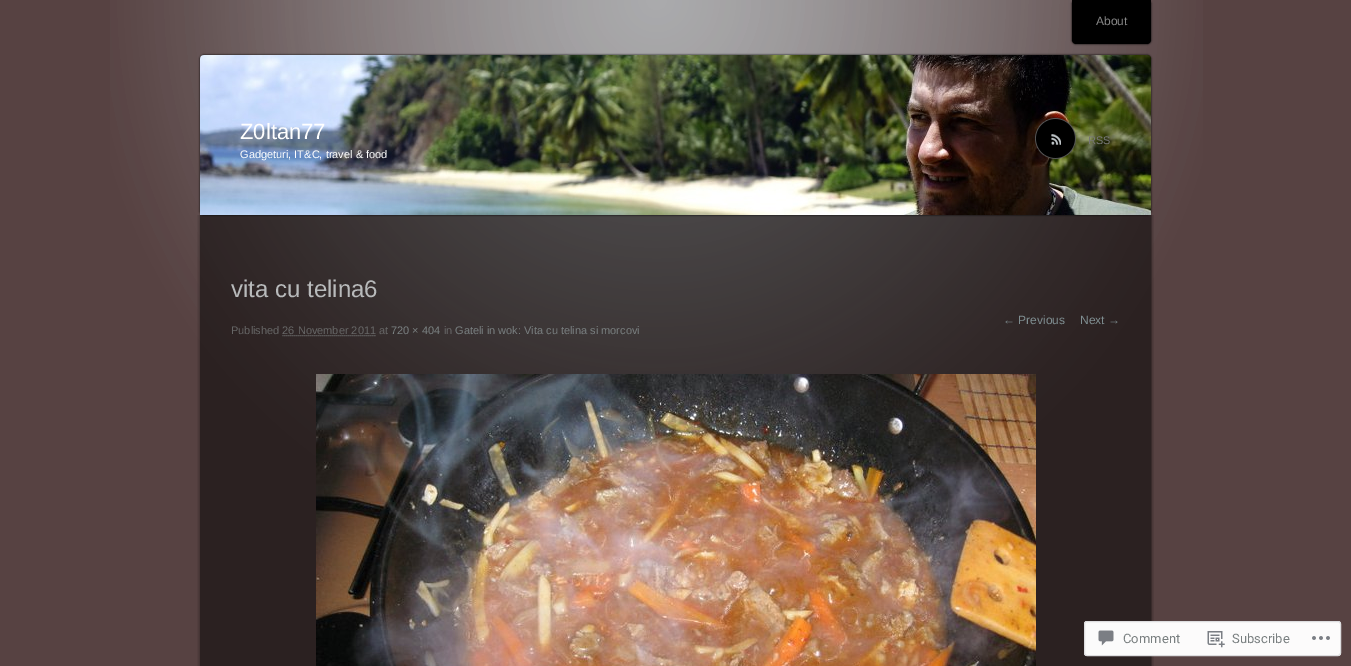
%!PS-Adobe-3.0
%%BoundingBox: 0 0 1351 666
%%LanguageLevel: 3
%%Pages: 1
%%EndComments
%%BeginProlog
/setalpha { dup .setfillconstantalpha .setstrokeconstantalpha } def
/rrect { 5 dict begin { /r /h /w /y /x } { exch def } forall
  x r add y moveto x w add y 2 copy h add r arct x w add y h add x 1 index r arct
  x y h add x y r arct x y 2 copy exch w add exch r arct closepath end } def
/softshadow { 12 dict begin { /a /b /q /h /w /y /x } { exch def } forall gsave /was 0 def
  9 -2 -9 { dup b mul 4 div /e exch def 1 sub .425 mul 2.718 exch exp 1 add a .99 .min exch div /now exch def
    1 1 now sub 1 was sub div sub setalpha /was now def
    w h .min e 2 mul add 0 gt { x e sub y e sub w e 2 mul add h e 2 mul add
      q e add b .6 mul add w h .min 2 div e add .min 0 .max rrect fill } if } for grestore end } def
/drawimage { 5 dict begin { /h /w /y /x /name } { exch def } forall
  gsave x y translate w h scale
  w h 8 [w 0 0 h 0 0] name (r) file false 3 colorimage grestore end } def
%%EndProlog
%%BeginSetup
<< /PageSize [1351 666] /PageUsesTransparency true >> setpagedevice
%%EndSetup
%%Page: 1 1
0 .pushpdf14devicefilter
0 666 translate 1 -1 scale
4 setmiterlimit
0.341 0.259 0.259 setrgbcolor
0 0 1351 666 rectfill
(images/1.raw) 110 0 1093 426 drawimage
0 setgray
1072 0 79 44 4 1 1 softshadow
newpath 1072 0 moveto 1151 0 lineto 1151 40 lineto 1151 42 1149 44 1147 44 curveto 1076 44 lineto 1074 44 1072 42 1072 40 curveto closepath fill
(images/4.raw) 197 215 957 451 drawimage
200 55 951 160 4 1 1 softshadow
(images/2.raw) 200 55 951 160 drawimage
(images/3.raw) 1035 118 41 41 drawimage
0.4 setgray
[1 1] 0 setdash
newpath 282.5 335.5 moveto 376 335.5 lineto stroke
(images/5.raw) 316 374 720 292 drawimage
0.98 setalpha
1 setgray
1084 621 257 35 3 rrect fill
0.863 0.863 0.871 setrgbcolor
[] 0 setdash
1084.5 621.5 256 34 2.5 rrect stroke
1 setalpha
(images/6.raw) 1098 630 16 16 drawimage
(images/7.raw) 1207 631 18 17 drawimage
(images/8.raw) 1312 636 18 4 drawimage
/LiberationSans-Regular [12 0 0 -12 0 0] selectfont
0.533 setgray
1096 25 moveto (About) show
/LiberationSans-Regular [22 0 0 -22 0 0] selectfont
1 setgray
240 139 moveto (Z0ltan77) show
/LiberationSans-Regular [11 0 0 -11 0 0] selectfont
240 158 moveto (Gadgeturi, IT&C, travel & food) show
0.467 setgray
1088 144 moveto (RSS) show
/LiberationSans-Regular [24 0 0 -24 0 0] selectfont
0.722 0.729 0.733 setrgbcolor
231 297 moveto (vita cu telina6) show
/LiberationSans-Regular [12 0 0 -12 0 0] selectfont
0.498 0.557 0.569 setrgbcolor
1003 324 moveto (← Previous) show
1080 324 moveto (Next →) show
/LiberationSans-Regular [11 0 0 -11 0 0] selectfont
0.4 setgray
231 334 moveto (Published 26 November 2011 at) show
0.475 0.498 0.502 setrgbcolor
391 334 moveto (720 × 404) show
0.4 setgray
444 334 moveto (in) show
0.475 0.498 0.502 setrgbcolor
455 334 moveto (Gateli in wok: Vita cu telina si morcovi) show
/Roboto-Regular [13 0 0 -13 0 0] selectfont
1123 643 moveto (Comment) show
1232 643 moveto (Subscribe) show
.poppdf14devicefilter showpage
%%EOF
